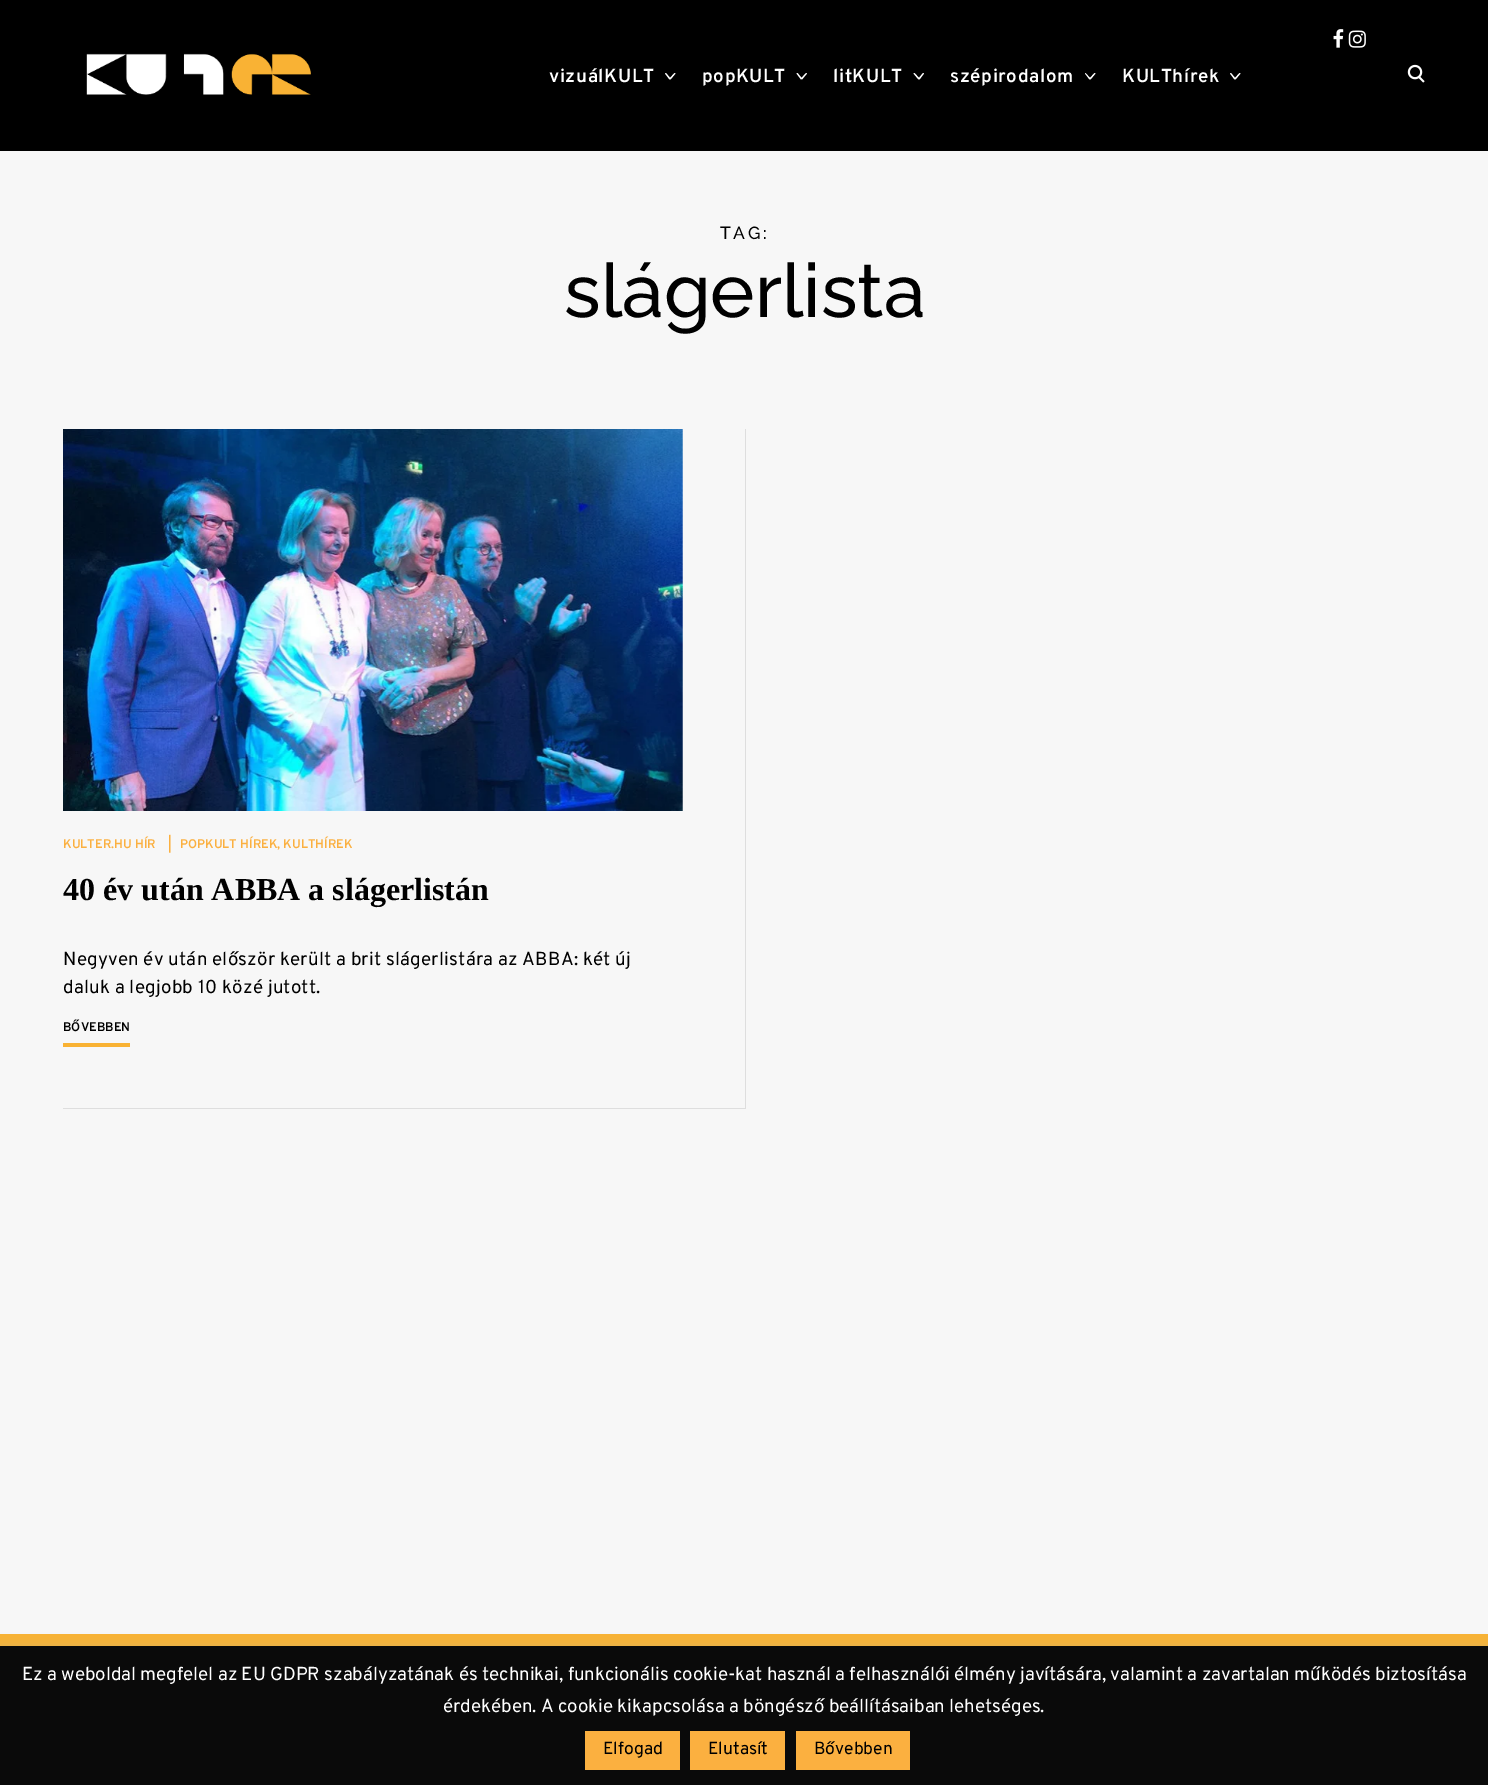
%!PS-Adobe-3.0
%%BoundingBox: 0 0 1488 1785
%%LanguageLevel: 3
%%Pages: 1
%%EndComments
%%BeginProlog
/setalpha { dup .setfillconstantalpha .setstrokeconstantalpha } def
/rrect { 5 dict begin { /r /h /w /y /x } { exch def } forall
  x r add y moveto x w add y 2 copy h add r arct x w add y h add x 1 index r arct
  x y h add x y r arct x y 2 copy exch w add exch r arct closepath end } def
/softshadow { 12 dict begin { /a /b /q /h /w /y /x } { exch def } forall gsave /was 0 def
  9 -2 -9 { dup b mul 4 div /e exch def 1 sub .425 mul 2.718 exch exp 1 add a .99 .min exch div /now exch def
    1 1 now sub 1 was sub div sub setalpha /was now def
    w h .min e 2 mul add 0 gt { x e sub y e sub w e 2 mul add h e 2 mul add
      q e add b .6 mul add w h .min 2 div e add .min 0 .max rrect fill } if } for grestore end } def
/drawimage { 5 dict begin { /h /w /y /x /name } { exch def } forall
  gsave x y translate w h scale
  w h 8 [w 0 0 h 0 0] name (r) file false 3 colorimage grestore end } def
%%EndProlog
%%BeginSetup
<< /PageSize [1488 1785] /PageUsesTransparency true >> setpagedevice
%%EndSetup
%%Page: 1 1
0 .pushpdf14devicefilter
0 1785 translate 1 -1 scale
4 setmiterlimit
0.969 setgray
0 0 1488 1785 rectfill
0 setgray
0 0 1488 151 rectfill
(images/1.raw) 1333 29 11 19 drawimage
(images/2.raw) 1348 30 18 18 drawimage
(images/3.raw) 86 53 225 42 drawimage
1 setgray
newpath 665 73.5 moveto 666 73 lineto 670.5 78.5 lineto 669.5 79.5 lineto closepath fill
newpath 674.5 73 moveto 675.5 73.5 lineto 670.5 79.5 lineto 669.5 78.5 lineto closepath fill
newpath 796.5 73.5 moveto 797.5 73 lineto 802 78.5 lineto 801 79.5 lineto closepath fill
newpath 806 73 moveto 807 73.5 lineto 802 79.5 lineto 801 78.5 lineto closepath fill
newpath 913.5 73.5 moveto 914.5 73 lineto 919.5 78.5 lineto 918.5 79.5 lineto closepath fill
newpath 923 73 moveto 924 73.5 lineto 919.5 79.5 lineto 918.5 78.5 lineto closepath fill
newpath 1085 73.5 moveto 1085.5 73 lineto 1090.5 78.5 lineto 1089.5 79.5 lineto closepath fill
newpath 1094.5 73 moveto 1095.5 73.5 lineto 1090.5 79.5 lineto 1089.5 78.5 lineto closepath fill
newpath 1230 73.5 moveto 1231 73 lineto 1235.5 78.5 lineto 1234.5 79.5 lineto closepath fill
newpath 1239.5 73 moveto 1240.5 73.5 lineto 1235.5 79.5 lineto 1234.5 78.5 lineto closepath fill
(images/4.raw) 1407 64 18 19 drawimage
(images/5.raw) 63 429 620 382 drawimage
0.976 0.698 0.2 setrgbcolor
63 1043 67 4 rectfill
0.871 setgray
63 1108 682 1 rectfill
745 429 1 680 rectfill
0.976 0.698 0.2 setrgbcolor
0 1634 1488 12 rectfill
0.675 0.671 0.671 setrgbcolor
0 1645 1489 139 0 6 0.3 softshadow
0.039 setgray
0 1646 1488 139 rectfill
0.984 0.69 0.251 setrgbcolor
585 1731 95 39 rectfill
690 1731 95 39 rectfill
796 1731 114 39 rectfill
/Overpass-SemiBold [18.75 0 0 -18.75 0 0] selectfont
1 setgray
549 82 moveto 0.6 0 (vizuálKULT) ashow
702 82 moveto 0.6 0 (popKULT) ashow
833 82 moveto 0.6 0 (litKULT) ashow
950 82 moveto 0.6 0 (szépirodalom) ashow
1122 82 moveto 0.6 0 (KULThírek) ashow
/Raleway-Medium [17.5 0 0 -17.5 0 0] selectfont
0 setgray
720 239 moveto 2.5 0 (TAG:) ashow
/Raleway-Medium [75 0 0 -75 0 0] selectfont
564 317 moveto (slágerlista) show
/Overpass-SemiBold [12.5 0 0 -12.5 0 0] selectfont
0.984 0.69 0.251 setrgbcolor
63 848 moveto (KULTER.HU HÍR) show
168 848 moveto (|) show
180 848 moveto (POPKULT HÍREK, KULTHÍREK) show
/LiberationSerif-Bold [32 0 0 -32 0 0] selectfont
0 setgray
63 900 moveto (40 év után ABBA a slágerlistán) show
/Overpass-Regular [18.75 0 0 -18.75 0 0] selectfont
63 965 moveto 0.25 0 (Negyven év után először került a brit slágerlistára az ABBA: két új) ashow
63 993 moveto 0.25 0 (daluk a legjobb 10 közé jutott.) ashow
/Overpass-SemiBold [12.5 0 0 -12.5 0 0] selectfont
63 1031 moveto (BŐVEBBEN) show
/Overpass-Regular [18.75 0 0 -18.75 0 0] selectfont
1 setgray
22 1680 moveto (Ez a weboldal megfelel az EU GDPR szabályzatának és technikai, funkcionális cookie-kat használ a felhasználói élmény javítására, valamint a zavartalan működés biztosítása) show
443 1712 moveto (érdekében. A cookie kikapcsolása a böngésző beállításaiban lehetséges.) show
/Overpass-Regular [17.5 0 0 -17.5 0 0] selectfont
0 setgray
603 1754 moveto (Elfogad) show
708 1754 moveto (Elutasít) show
814 1754 moveto (Bővebben) show
.poppdf14devicefilter showpage
%%EOF
